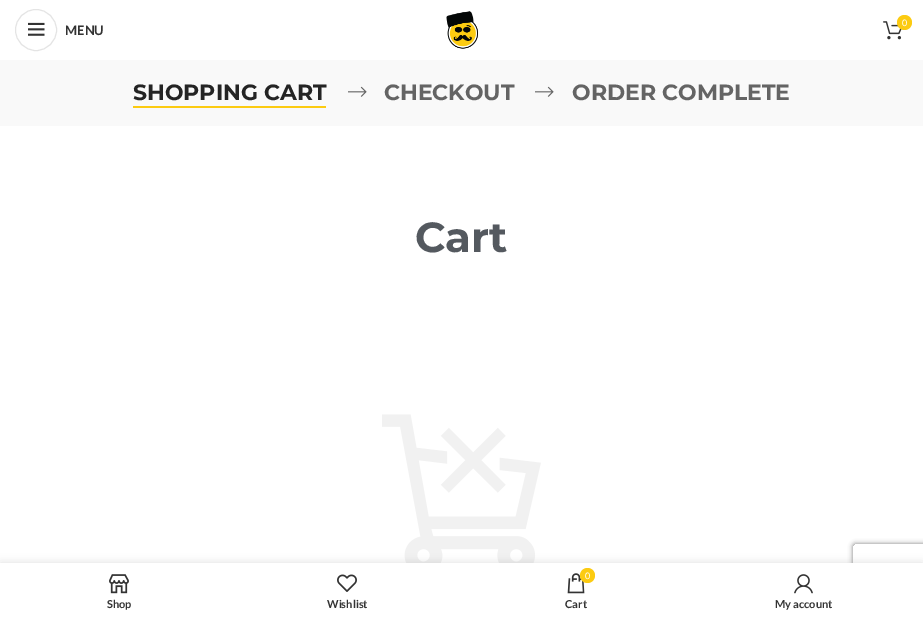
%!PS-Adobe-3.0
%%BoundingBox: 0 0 923 618
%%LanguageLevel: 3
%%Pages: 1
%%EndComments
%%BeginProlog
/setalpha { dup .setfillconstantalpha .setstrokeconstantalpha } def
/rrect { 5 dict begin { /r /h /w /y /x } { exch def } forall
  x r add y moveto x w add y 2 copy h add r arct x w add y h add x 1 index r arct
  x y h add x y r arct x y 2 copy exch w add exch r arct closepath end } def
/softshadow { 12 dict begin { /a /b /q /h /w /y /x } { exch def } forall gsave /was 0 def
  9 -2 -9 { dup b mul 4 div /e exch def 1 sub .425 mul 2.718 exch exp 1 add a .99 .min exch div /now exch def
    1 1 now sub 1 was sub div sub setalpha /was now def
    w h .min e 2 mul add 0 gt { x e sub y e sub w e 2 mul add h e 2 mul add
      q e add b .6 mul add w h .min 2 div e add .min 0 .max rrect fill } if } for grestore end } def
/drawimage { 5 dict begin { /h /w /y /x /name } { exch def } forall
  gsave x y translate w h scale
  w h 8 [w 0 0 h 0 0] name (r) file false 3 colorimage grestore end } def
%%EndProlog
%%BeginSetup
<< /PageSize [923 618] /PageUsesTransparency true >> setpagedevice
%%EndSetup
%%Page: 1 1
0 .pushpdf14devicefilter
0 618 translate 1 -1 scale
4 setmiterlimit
1 setgray
0 0 923 618 rectfill
(images/1.raw) 446 11 32 38 drawimage
(images/2.raw) 883 21 19 19 drawimage
0.988 0.796 0.067 setrgbcolor
newpath 904.5 22.5 7.5 0 360 arc closepath fill
0.894 setgray
newpath 36 30 20.5 0 360 arc closepath stroke
(images/3.raw) 28 22 17 14 drawimage
0.976 setgray
0 60 923 66 rectfill
0.988 0.796 0.067 setrgbcolor
133 106 193 2 rectfill
(images/4.raw) 348 86 19 11 drawimage
(images/4.raw) 535 86 19 11 drawimage
(images/5.raw) 382 414 159 149 drawimage
0 setgray
0 563 923 55 0 4.5 0.12 softshadow
gsave
newpath 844 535 moveto 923 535 lineto 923 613 lineto 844 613 lineto closepath 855 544 moveto 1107 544 lineto 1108 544 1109 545 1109 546 curveto 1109 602 lineto 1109 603 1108 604 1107 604 curveto 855 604 lineto 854 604 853 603 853 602 curveto 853 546 lineto 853 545 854 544 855 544 curveto closepath eoclip newpath
0.502 setgray
853 544 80 60 2 2.5 1 softshadow
grestore
1 setgray
0 563 923 55 rectfill
(images/6.raw) 109 574 20 20 drawimage
(images/7.raw) 337 574 20 18 drawimage
(images/8.raw) 567 573 18 21 drawimage
0.988 0.796 0.067 setrgbcolor
newpath 587.5 575.5 7.5 0 360 arc closepath fill
(images/9.raw) 794 574 19 20 drawimage
/Lato-Regular [9 0 0 -9 0 0] selectfont
1 setgray
902 26 moveto (0) show
/Lato-Bold [13 0 0 -13 0 0] selectfont
0.2 setgray
65 35 moveto (MENU) show
/Montserrat-Bold [22 0 0 -22 0 0] selectfont
0.141 setgray
133 100 moveto (SHOPPING CART) show
0.392 setgray
384 100 moveto (CHECKOUT) show
572 100 moveto (ORDER COMPLETE) show
/Montserrat-Bold [42 0 0 -42 0 0] selectfont
0.329 0.349 0.373 setrgbcolor
415 252 moveto (Cart) show
/Lato-Bold [11 0 0 -11 0 0] selectfont
0.2 setgray
107 608 moveto (Shop) show
327 608 moveto (Wishlist) show
/Lato-Regular [9 0 0 -9 0 0] selectfont
1 setgray
585 579 moveto (0) show
/Lato-Bold [11 0 0 -11 0 0] selectfont
0.2 setgray
565 608 moveto (Cart) show
775 608 moveto (My account) show
.poppdf14devicefilter showpage
%%EOF
